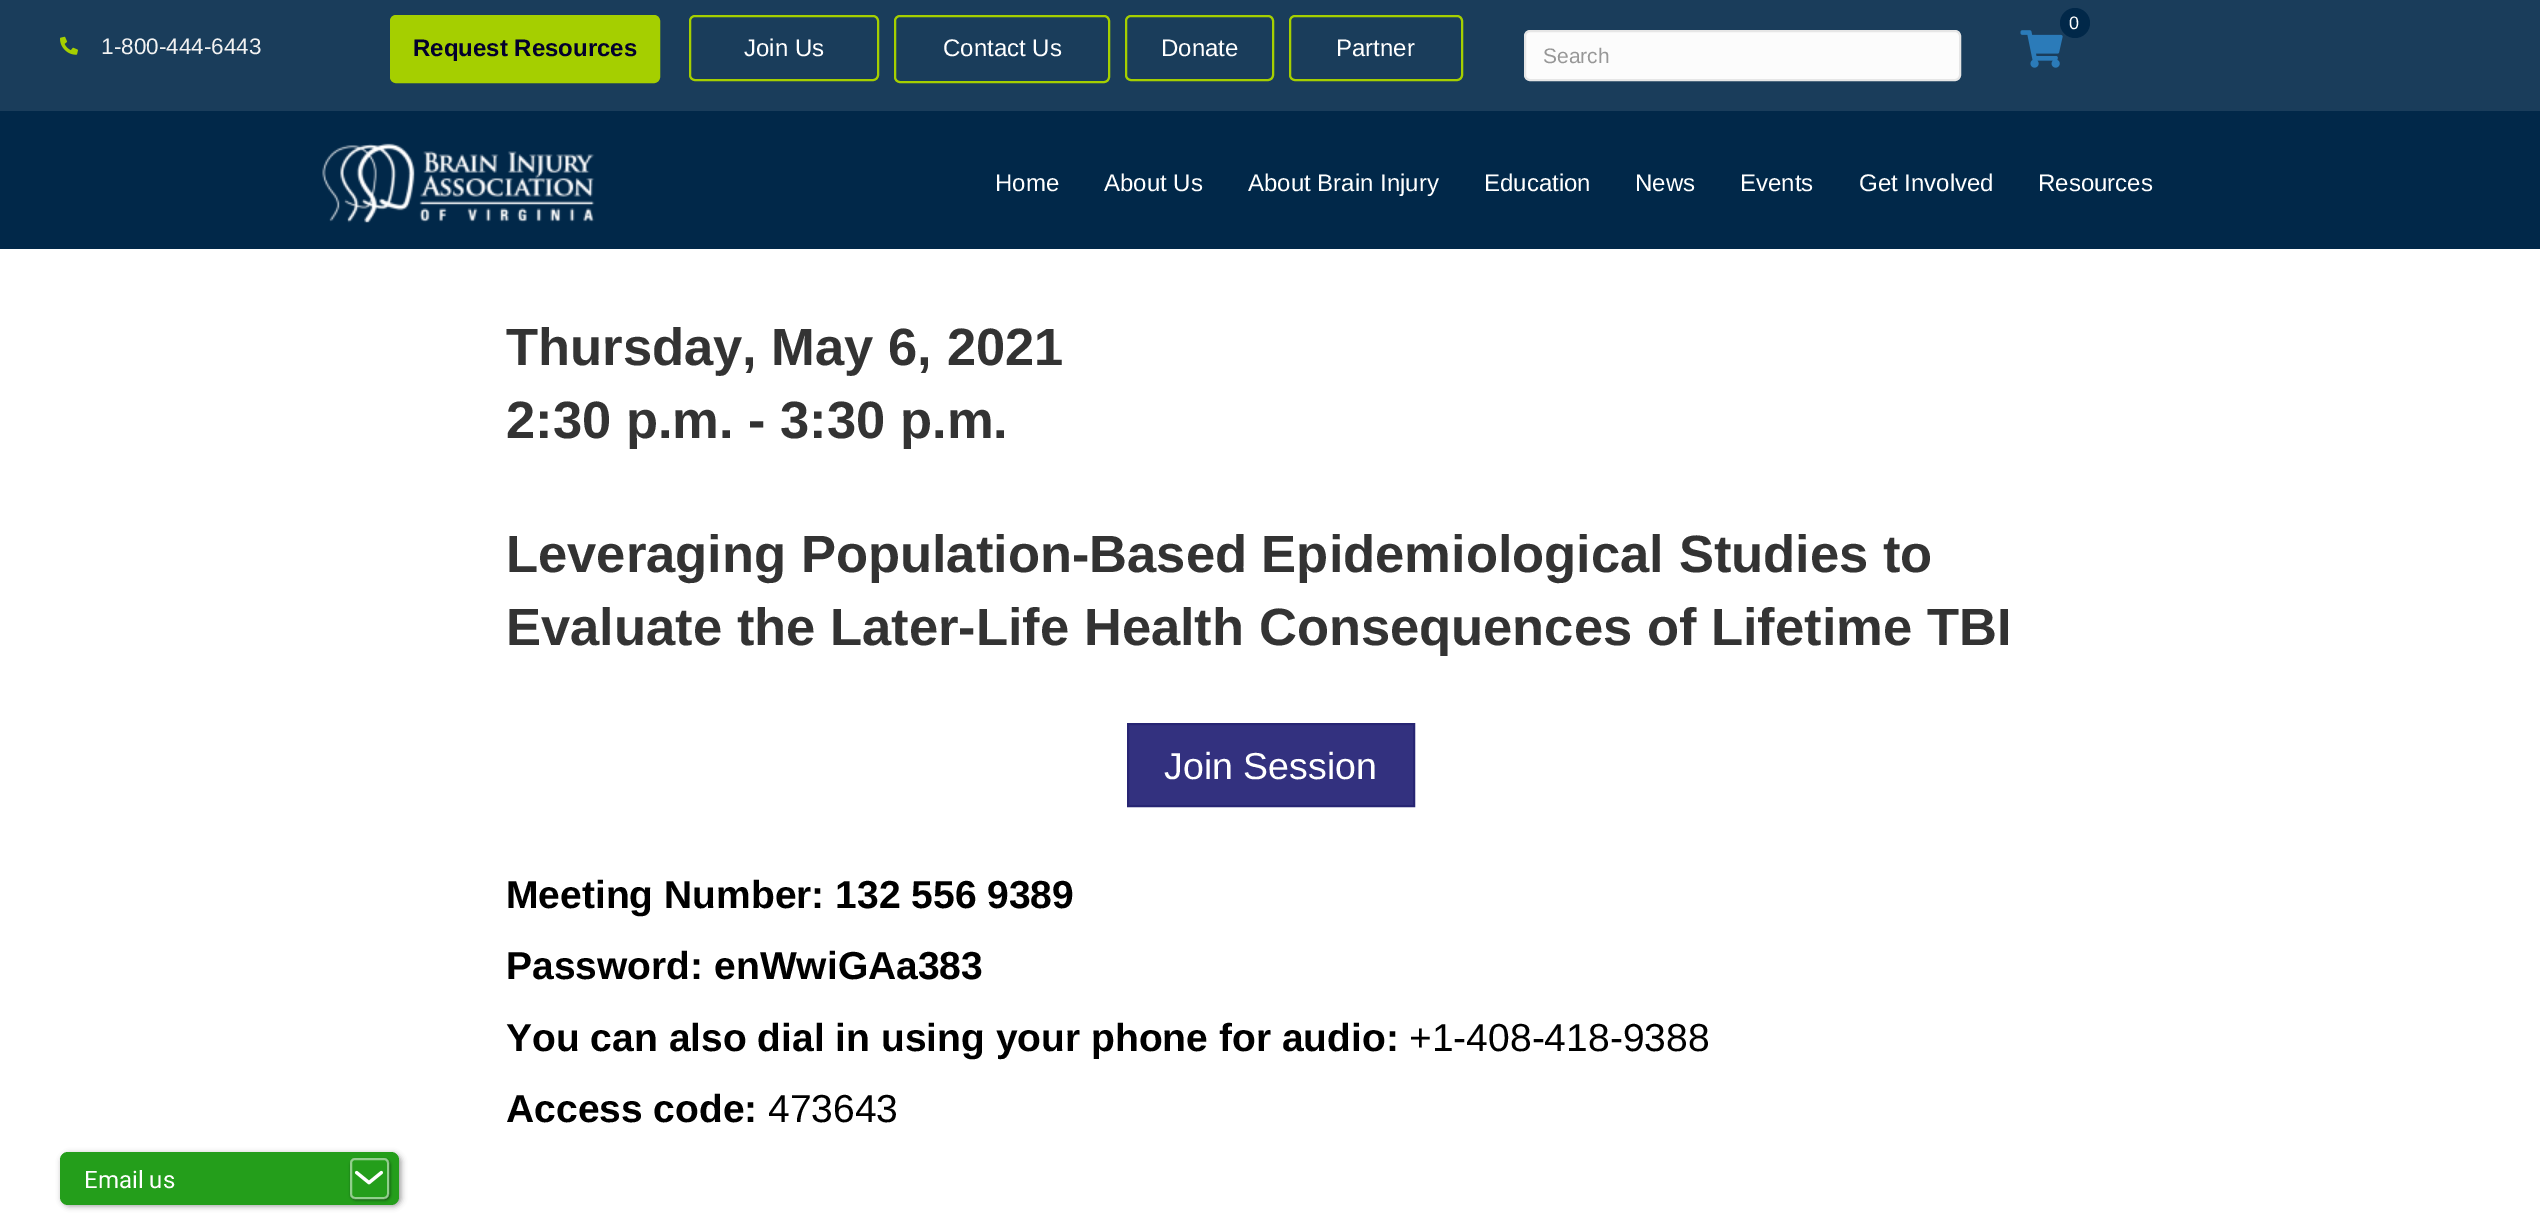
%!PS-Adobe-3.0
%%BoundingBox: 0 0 2540 1219
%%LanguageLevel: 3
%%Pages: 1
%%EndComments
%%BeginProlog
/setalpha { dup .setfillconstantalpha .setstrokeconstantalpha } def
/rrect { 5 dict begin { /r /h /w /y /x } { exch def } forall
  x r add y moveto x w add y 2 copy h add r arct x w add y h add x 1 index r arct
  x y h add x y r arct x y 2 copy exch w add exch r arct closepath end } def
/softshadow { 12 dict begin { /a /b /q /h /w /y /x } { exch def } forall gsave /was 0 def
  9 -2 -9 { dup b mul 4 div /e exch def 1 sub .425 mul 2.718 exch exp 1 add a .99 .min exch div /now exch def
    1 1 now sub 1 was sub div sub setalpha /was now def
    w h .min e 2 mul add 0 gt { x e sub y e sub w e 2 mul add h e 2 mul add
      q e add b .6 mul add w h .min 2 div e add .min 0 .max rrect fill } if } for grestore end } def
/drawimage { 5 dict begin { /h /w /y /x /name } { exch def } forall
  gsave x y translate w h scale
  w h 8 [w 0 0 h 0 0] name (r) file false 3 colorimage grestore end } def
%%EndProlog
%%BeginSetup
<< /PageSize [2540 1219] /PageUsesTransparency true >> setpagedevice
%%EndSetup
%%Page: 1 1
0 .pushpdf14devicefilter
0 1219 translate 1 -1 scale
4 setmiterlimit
1 setgray
0 0 2540 1219 rectfill
0.102 0.239 0.357 setrgbcolor
0 0 2540 111 rectfill
(images/1.raw) 2020 30 43 38 drawimage
0.004 0.157 0.286 setrgbcolor
newpath 2075 23 15 0 360 arc closepath fill
(images/2.raw) 60 36 18 19 drawimage
0.647 0.812 0 setrgbcolor
391 16 268 66 5 rrect gsave fill grestore
2 setlinewidth
stroke
690 16 188 64 5 rrect stroke
895 16 214 66 5 rrect stroke
1126 16 147 64 5 rrect stroke
1290 16 172 64 5 rrect stroke
0.988 setgray
1525 31 435 49 5 rrect gsave fill grestore
0.902 setgray
stroke
0.004 0.157 0.286 setrgbcolor
0 111 2540 138 rectfill
(images/3.raw) 322 143 273 80 drawimage
0.2 0.192 0.498 setrgbcolor
newpath 1128 724 moveto 1414 724 lineto 1414 806 lineto 1128 806 lineto closepath gsave fill grestore
0.153 0.145 0.451 setrgbcolor
stroke
0 setgray
62 1154 339 52 8 3 0.4 softshadow
0.141 0.62 0.106 setrgbcolor
60 1152 339 53 8 rrect fill
gsave
newpath 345 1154 moveto 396 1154 lineto 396 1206 lineto 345 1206 lineto closepath 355 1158 moveto 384 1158 lineto 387 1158 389 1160 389 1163 curveto 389 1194 lineto 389 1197 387 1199 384 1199 curveto 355 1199 lineto 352 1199 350 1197 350 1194 curveto 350 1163 lineto 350 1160 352 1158 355 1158 curveto closepath eoclip newpath
0 setgray
351 1160 39 40 5 1.5 0.5 softshadow
grestore
0.5 setalpha
1 setgray
351 1159 37 39 4 rrect stroke
1 setalpha
(images/4.raw) 354 1170 29 15 drawimage
/LiberationSans-Regular [18 0 0 -18 0 0] selectfont
2069 29 moveto (0) show
/LiberationSans-Regular [22.5 0 0 -22.5 0 0] selectfont
0.949 setgray
101 54 moveto (1-800-444-6443) show
/LiberationSans-Bold [24 0 0 -24 0 0] selectfont
0.012 0 0.176 setrgbcolor
413 56 moveto (Request Resources) show
/LiberationSans-Regular [24 0 0 -24 0 0] selectfont
1 setgray
744 56 moveto (Join Us) show
943 56 moveto (Contact Us) show
1161 56 moveto (Donate) show
1336 56 moveto (Partner) show
/LiberationSans-Regular [21 0 0 -21 0 0] selectfont
0.592 setgray
1543 63 moveto (Search) show
/LiberationSans-Regular [24 0 0 -24 0 0] selectfont
1 setgray
995 191 moveto (Home) show
1104 191 moveto (About Us) show
1248 191 moveto (About Brain Injury) show
1484 191 moveto (Education) show
1635 191 moveto (News) show
1740 191 moveto (Events) show
1859 191 moveto (Get Involved) show
2038 191 moveto (Resources) show
/LiberationSans-Bold [52.5 0 0 -52.5 0 0] selectfont
0.2 setgray
506 365 moveto (Thursday, May 6, 2021) show
506 438 moveto (2:30 p.m. - 3:30 p.m.) show
506 572 moveto (Leveraging Population-Based Epidemiological Studies to) show
506 645 moveto (Evaluate the Later-Life Health Consequences of Lifetime TBI) show
/LiberationSans-Regular [37.5 0 0 -37.5 0 0] selectfont
1 setgray
1164 779 moveto (Join Session) show
/LiberationSans-Bold [39 0 0 -39 0 0] selectfont
0 setgray
506 908 moveto (Meeting Number: 132 556 9389) show
506 979 moveto (Password: enWwiGAa383) show
506 1051 moveto (You can also dial in using your phone for audio:) show
/LiberationSans-Regular [39 0 0 -39 0 0] selectfont
1409 1051 moveto (+1-408-418-9388) show
/LiberationSans-Bold [39 0 0 -39 0 0] selectfont
506 1122 moveto (Access code:) show
/LiberationSans-Regular [39 0 0 -39 0 0] selectfont
768 1122 moveto (473643) show
/Roboto-Regular [24 0 0 -24 0 0] selectfont
1 setgray
84 1188 moveto (Email us) show
.poppdf14devicefilter showpage
%%EOF
